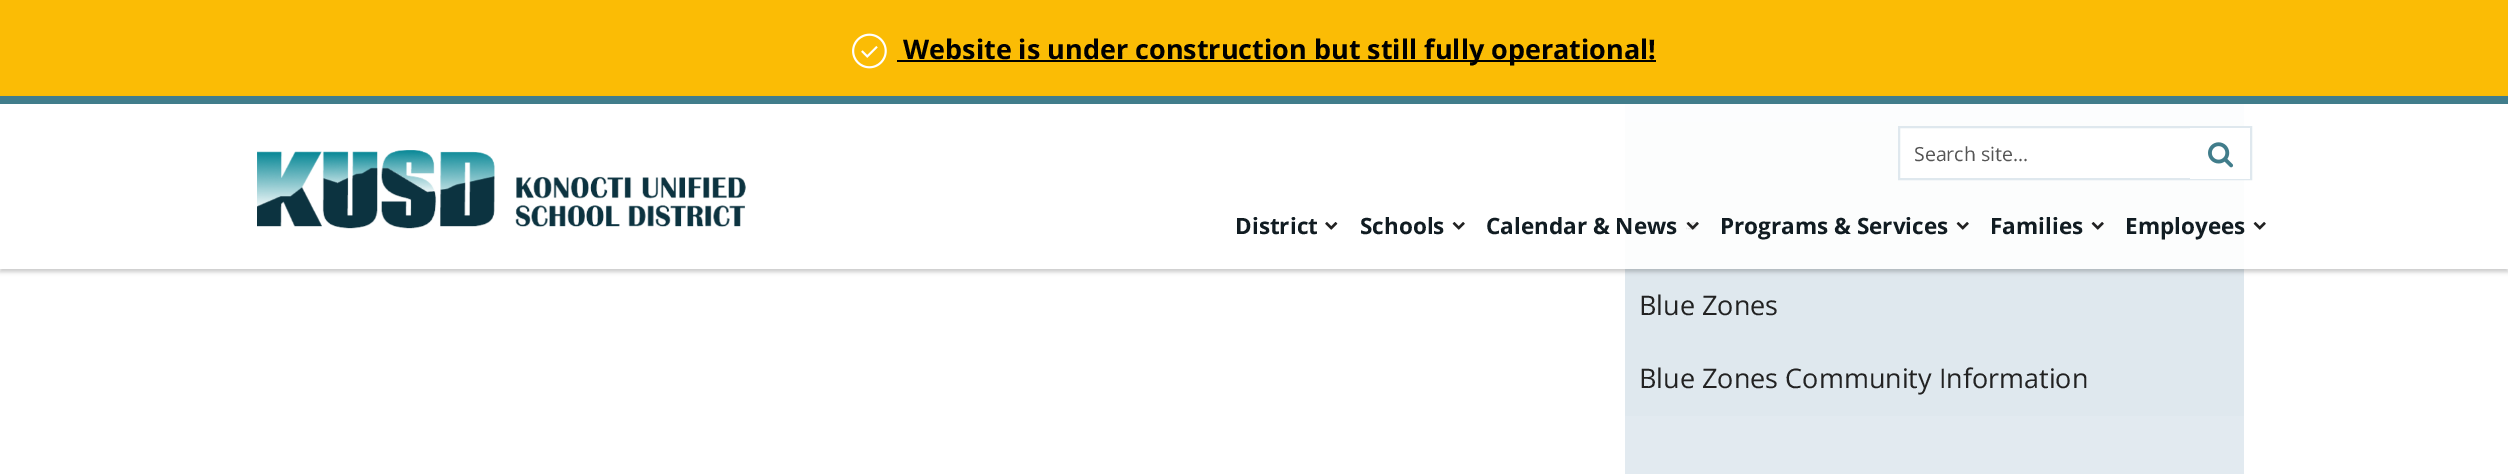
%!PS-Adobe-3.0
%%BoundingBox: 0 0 2508 474
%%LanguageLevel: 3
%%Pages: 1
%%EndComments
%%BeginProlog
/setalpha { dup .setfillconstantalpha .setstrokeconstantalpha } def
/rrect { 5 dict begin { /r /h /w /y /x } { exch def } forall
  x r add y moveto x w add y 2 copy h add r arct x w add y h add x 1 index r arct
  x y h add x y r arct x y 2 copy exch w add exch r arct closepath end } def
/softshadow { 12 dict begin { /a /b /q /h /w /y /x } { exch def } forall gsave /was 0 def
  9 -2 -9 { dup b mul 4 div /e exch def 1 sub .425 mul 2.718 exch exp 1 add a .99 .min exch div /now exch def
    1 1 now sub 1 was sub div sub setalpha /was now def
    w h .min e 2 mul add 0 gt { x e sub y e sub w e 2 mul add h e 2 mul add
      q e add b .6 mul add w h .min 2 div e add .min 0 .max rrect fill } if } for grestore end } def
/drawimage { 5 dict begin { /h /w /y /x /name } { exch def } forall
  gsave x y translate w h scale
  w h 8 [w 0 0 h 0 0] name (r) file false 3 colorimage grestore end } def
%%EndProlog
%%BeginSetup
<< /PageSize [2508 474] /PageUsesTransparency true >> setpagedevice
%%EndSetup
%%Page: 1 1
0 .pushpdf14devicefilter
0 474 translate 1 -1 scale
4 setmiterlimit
1 setgray
0 0 2508 474 rectfill
0.984 0.737 0.02 setrgbcolor
0 0 2508 96 rectfill
(images/1.raw) 852 33 35 36 drawimage
0 setgray
897 60 759 2 rectfill
0.886 0.918 0.941 setrgbcolor
1625 104 619 370 rectfill
0.875 0.91 0.933 setrgbcolor
1625 122 619 294 rectfill
gsave
newpath 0 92 moveto 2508 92 lineto 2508 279 lineto 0 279 lineto closepath 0 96 moveto 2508 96 lineto 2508 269 lineto 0 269 lineto closepath eoclip newpath
0 setgray
0 99 2508 173 0 2 0.2 softshadow
grestore
0.9 setalpha
1 setgray
0 104 2508 165 rectfill
1 setalpha
0.255 0.49 0.545 setrgbcolor
0 96 2508 8 rectfill
(images/2.raw) 257 150 489 79 drawimage
1 setgray
1900 128 290 50 rectfill
0.875 0.91 0.933 setrgbcolor
2 setlinewidth
1899 127 352 52 rectstroke
1 setgray
2190 128 60 51 rectfill
(images/3.raw) 2208 142 26 26 drawimage
(images/4.raw) 1325 222 13 8 drawimage
(images/5.raw) 1452 222 13 8 drawimage
(images/6.raw) 1686 222 13 8 drawimage
(images/7.raw) 1956 222 13 8 drawimage
(images/7.raw) 2091 222 13 8 drawimage
(images/5.raw) 2253 222 13 8 drawimage
/OpenSans-Bold [27 0 0 -27 0 0] selectfont
0 setgray
903 59 moveto (Website is under construction but still fully operational!) show
/OpenSans-Regular [19.5 0 0 -19.5 0 0] selectfont
0.333 setgray
1914 161 moveto (Search site...) show
/OpenSans-Bold [22.5 0 0 -22.5 0 0] selectfont
0.067 0.11 0.133 setrgbcolor
1235 234 moveto (District) show
1360 234 moveto (Schools) show
1486 234 moveto (Calendar & News) show
1720 234 moveto (Programs & Services) show
1990 234 moveto (Families) show
2125 234 moveto (Employees) show
/OpenSans-Regular [27 0 0 -27 0 0] selectfont
0.133 setgray
1639 315 moveto (Blue Zones) show
1639 388 moveto (Blue Zones Community Information) show
.poppdf14devicefilter showpage
%%EOF
